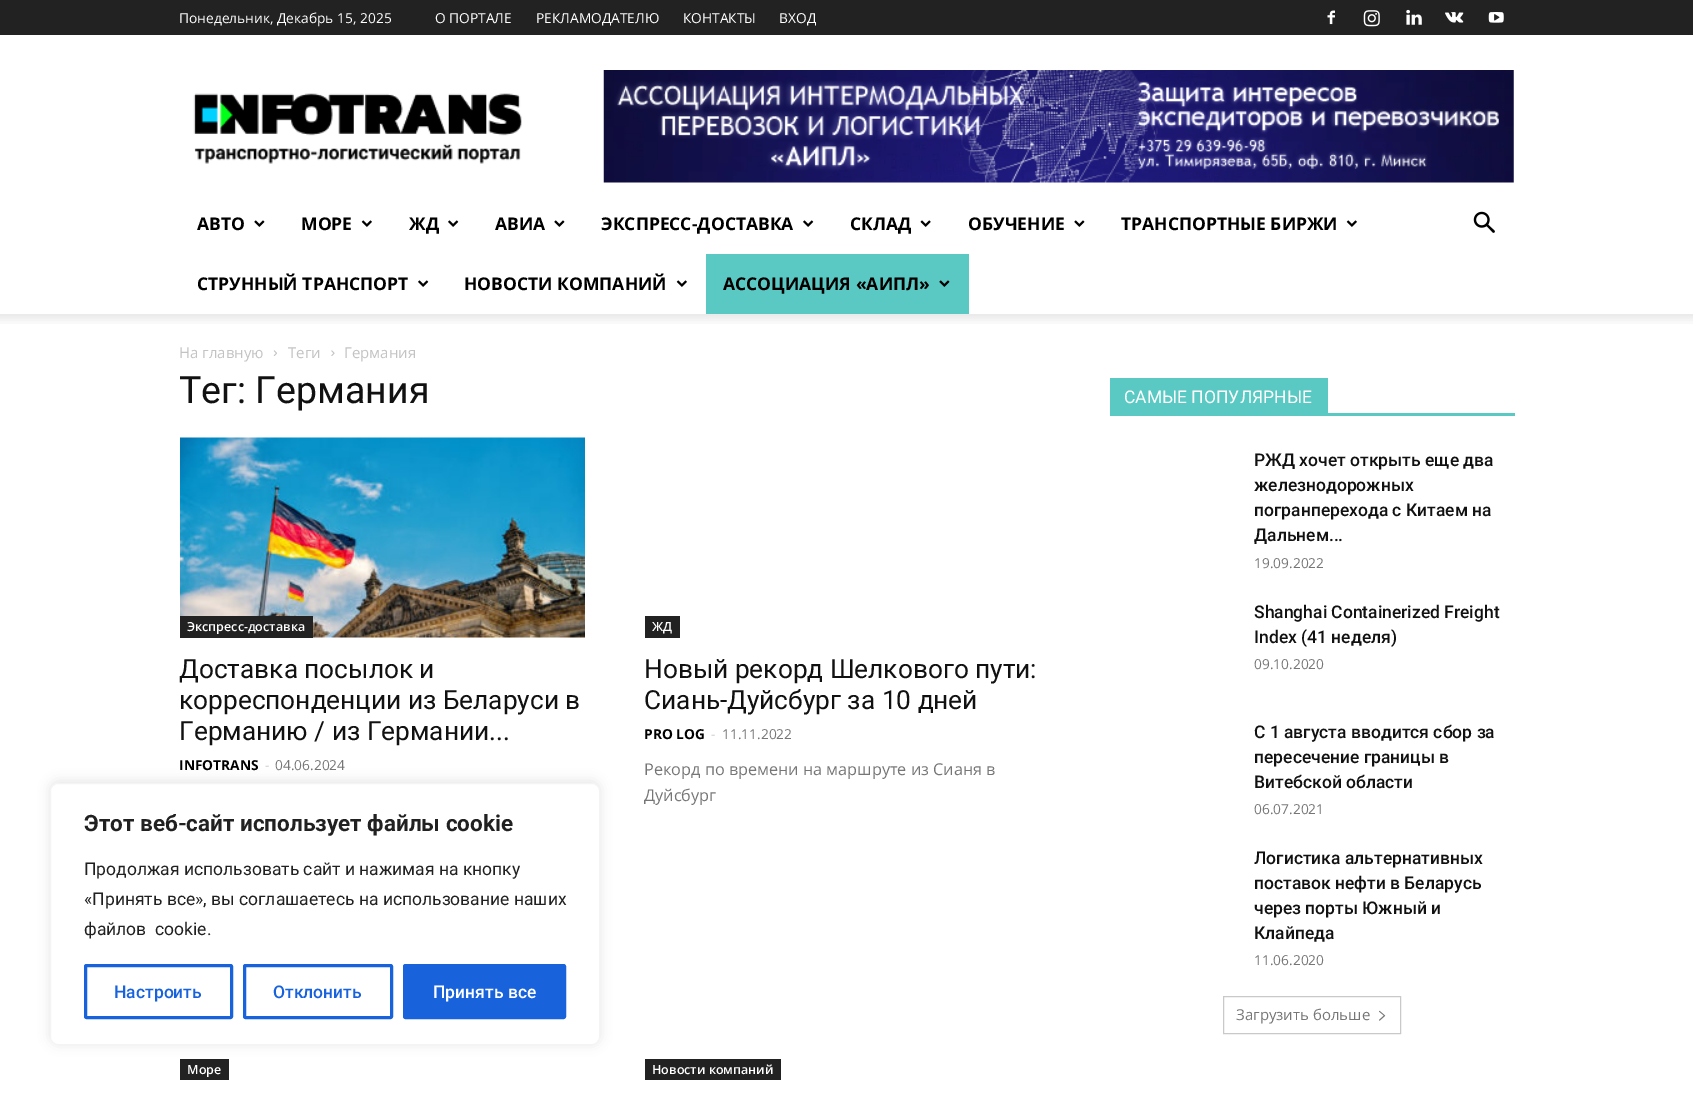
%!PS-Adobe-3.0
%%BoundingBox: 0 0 1693 1095
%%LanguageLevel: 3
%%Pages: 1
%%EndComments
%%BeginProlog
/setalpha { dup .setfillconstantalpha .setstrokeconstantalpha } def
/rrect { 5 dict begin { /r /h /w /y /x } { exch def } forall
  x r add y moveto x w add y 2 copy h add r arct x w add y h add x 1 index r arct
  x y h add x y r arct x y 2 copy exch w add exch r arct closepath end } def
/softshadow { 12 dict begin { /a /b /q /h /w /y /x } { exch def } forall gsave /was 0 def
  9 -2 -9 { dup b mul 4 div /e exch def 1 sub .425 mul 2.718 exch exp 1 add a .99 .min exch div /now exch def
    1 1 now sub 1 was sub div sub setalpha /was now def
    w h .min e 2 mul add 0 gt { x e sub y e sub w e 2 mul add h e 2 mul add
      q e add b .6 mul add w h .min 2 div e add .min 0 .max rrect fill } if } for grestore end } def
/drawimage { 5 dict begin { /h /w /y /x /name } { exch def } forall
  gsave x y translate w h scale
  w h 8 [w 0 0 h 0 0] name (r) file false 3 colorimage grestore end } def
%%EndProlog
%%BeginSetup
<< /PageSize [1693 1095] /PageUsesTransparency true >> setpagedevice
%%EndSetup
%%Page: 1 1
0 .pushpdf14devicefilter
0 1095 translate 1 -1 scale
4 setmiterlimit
1 setgray
0 0 1693 1095 rectfill
0.133 setgray
0 0 1693 35 rectfill
(images/1.raw) 1327 10 8 15 drawimage
(images/2.raw) 1363 10 17 17 drawimage
(images/3.raw) 1406 9 16 16 drawimage
(images/4.raw) 1445 12 19 11 drawimage
(images/5.raw) 1488 12 16 11 drawimage
(images/6.raw) 193 93 329 71 drawimage
(images/7.raw) 603 70 911 113 drawimage
(images/8.raw) 254 220 11 7 drawimage
(images/9.raw) 361 220 11 7 drawimage
(images/10.raw) 448 220 11 7 drawimage
(images/8.raw) 554 220 11 7 drawimage
(images/10.raw) 803 220 11 7 drawimage
(images/11.raw) 920 220 11 7 drawimage
(images/8.raw) 1074 220 11 7 drawimage
(images/9.raw) 1346 220 11 7 drawimage
(images/10.raw) 418 280 11 7 drawimage
(images/9.raw) 676 280 11 7 drawimage
0.353 0.788 0.765 setrgbcolor
706 254 263 60 rectfill
(images/12.raw) 939 280 11 7 drawimage
(images/13.raw) 1473 211 22 22 drawimage
(images/14.raw) 0 314 1693 10 drawimage
(images/15.raw) 273 350 4 6 drawimage
(images/16.raw) 331 350 4 6 drawimage
(images/17.raw) 180 437 405 201 drawimage
0.133 setgray
180 616 133 22 rectfill
645 616 35 22 rectfill
180 1059 49 21 rectfill
645 1059 136 21 rectfill
0.353 0.788 0.765 setrgbcolor
1110 413 405 3 rectfill
1110 378 218 35 rectfill
0.788 setgray
1223.5 996.5 177 37 rectstroke
(images/18.raw) 1379 1010 7 11 drawimage
0.675 0.671 0.671 setrgbcolor
50 781 550 263 8 6 0.3 softshadow
1 setgray
50.5 783.5 549 261 7.5 rrect gsave fill grestore
0.957 setgray
stroke
0.094 0.388 0.863 setrgbcolor
3 setlinewidth
85.5 965.5 146 52 1 rrect stroke
244.5 965.5 147 52 1 rrect stroke
404.5 965.5 160 52 1 rrect gsave fill grestore
stroke
/OpenSans-Regular [13.75 0 0 -13.75 0 0] selectfont
1 setgray
179 23 moveto (Понедельник, Декабрь 15, 2025) show
435 23 moveto (О ПОРТАЛЕ) show
536 23 moveto (РЕКЛАМОДАТЕЛЮ) show
683 23 moveto (КОНТАКТЫ) show
779 23 moveto (ВХОД) show
/OpenSans-Bold [17.5 0 0 -17.5 0 0] selectfont
0 setgray
197 230 moveto (АВТО) show
301 230 moveto (МОРЕ) show
409 230 moveto (ЖД) show
495 230 moveto (АВИА) show
601 230 moveto (ЭКСПРЕСС-ДОСТАВКА) show
850 230 moveto (СКЛАД) show
968 230 moveto (ОБУЧЕНИЕ) show
1121 230 moveto (ТРАНСПОРТНЫЕ БИРЖИ) show
197 290 moveto (СТРУННЫЙ ТРАНСПОРТ) show
464 290 moveto (НОВОСТИ КОМПАНИЙ) show
723 290 moveto (АССОЦИАЦИЯ «АИПЛ») show
/OpenSans-Regular [15 0 0 -15 0 0] selectfont
0.765 setgray
179 358 moveto (На главную) show
288 358 moveto (Теги) show
344 358 moveto (Германия) show
/Roboto-Regular [37.5 0 0 -37.5 0 0] selectfont
0.067 setgray
179 403 moveto (Тег: Германия) show
/OpenSans-SemiBold [12.5 0 0 -12.5 0 0] selectfont
1 setgray
187 631 moveto (Экспресс-доставка) show
/Roboto-Regular [26.25 0 0 -26.25 0 0] selectfont
0.067 setgray
179 678 moveto (Доставка посылок и) show
179 709 moveto (корреспонденции из Беларуси в) show
179 740 moveto (Германию / из Германии...) show
/OpenSans-Bold [13.75 0 0 -13.75 0 0] selectfont
0 setgray
179 770 moveto (INFOTRANS) show
/OpenSans-Regular [13.75 0 0 -13.75 0 0] selectfont
0.8 setgray
265 770 moveto (-) show
0.463 setgray
275 770 moveto (04.06.2024) show
/OpenSans-SemiBold [12.5 0 0 -12.5 0 0] selectfont
1 setgray
652 631 moveto (ЖД) show
/Roboto-Regular [26.25 0 0 -26.25 0 0] selectfont
0.067 setgray
644 678 moveto (Новый рекорд Шелкового пути:) show
644 709 moveto (Сиань-Дуйсбург за 10 дней) show
/OpenSans-Bold [13.75 0 0 -13.75 0 0] selectfont
0 setgray
644 739 moveto (PRO LOG) show
/OpenSans-Regular [13.75 0 0 -13.75 0 0] selectfont
0.8 setgray
711 739 moveto (-) show
0.463 setgray
722 739 moveto (11.11.2022) show
/OpenSans-Regular [16.25 0 0 -16.25 0 0] selectfont
644 775 moveto (Рекорд по времени на маршруте из Сианя в) show
644 801 moveto (Дуйсбург) show
/OpenSans-SemiBold [12.5 0 0 -12.5 0 0] selectfont
1 setgray
187 1074 moveto (Море) show
652 1074 moveto (Новости компаний) show
/Roboto-Regular [17.5 0 0 -17.5 0 0] selectfont
1124 403 moveto (САМЫЕ ПОПУЛЯРНЫЕ) show
/Roboto-Medium [17.5 0 0 -17.5 0 0] selectfont
0.067 setgray
1254 466 moveto (РЖД хочет открыть еще два) show
1254 491 moveto (железнодорожных) show
1254 516 moveto (погранперехода с Китаем на) show
1254 541 moveto (Дальнем...) show
/OpenSans-Regular [13.75 0 0 -13.75 0 0] selectfont
0.463 setgray
1254 568 moveto (19.09.2022) show
/Roboto-Medium [17.5 0 0 -17.5 0 0] selectfont
0.067 setgray
1254 618 moveto (Shanghai Containerized Freight) show
1254 643 moveto (Index \(41 неделя\)) show
/OpenSans-Regular [13.75 0 0 -13.75 0 0] selectfont
0.463 setgray
1254 669 moveto (09.10.2020) show
/Roboto-Medium [17.5 0 0 -17.5 0 0] selectfont
0.067 setgray
1254 738 moveto (C 1 августа вводится сбор за) show
1254 763 moveto (пересечение границы в) show
1254 788 moveto (Витебской области) show
/OpenSans-Regular [13.75 0 0 -13.75 0 0] selectfont
0.463 setgray
1254 814 moveto (06.07.2021) show
/Roboto-Medium [17.5 0 0 -17.5 0 0] selectfont
0.067 setgray
1254 864 moveto (Логистика альтернативных) show
1254 889 moveto (поставок нефти в Беларусь) show
1254 914 moveto (через порты Южный и) show
1254 939 moveto (Клайпеда) show
/OpenSans-Regular [13.75 0 0 -13.75 0 0] selectfont
0.463 setgray
1254 965 moveto (11.06.2020) show
/OpenSans-Regular [15 0 0 -15 0 0] selectfont
1236 1020 moveto (Загрузить больше) show
/Roboto-Bold [22.5 0 0 -22.5 0 0] selectfont
0.129 setgray
84 831 moveto (Этот веб-сайт использует файлы cookie) show
/Roboto-Regular [17.5 0 0 -17.5 0 0] selectfont
84 875 moveto (Продолжая использовать сайт и нажимая на кнопку) show
84 905 moveto («Принять все», вы соглашаетесь на использование наших) show
84 935 moveto (файлов  cookie.) show
/Roboto-Medium [17.5 0 0 -17.5 0 0] selectfont
0.094 0.388 0.863 setrgbcolor
114 998 moveto (Настроить) show
273 998 moveto (Отклонить) show
1 setgray
433 998 moveto (Принять все) show
.poppdf14devicefilter showpage
%%EOF
